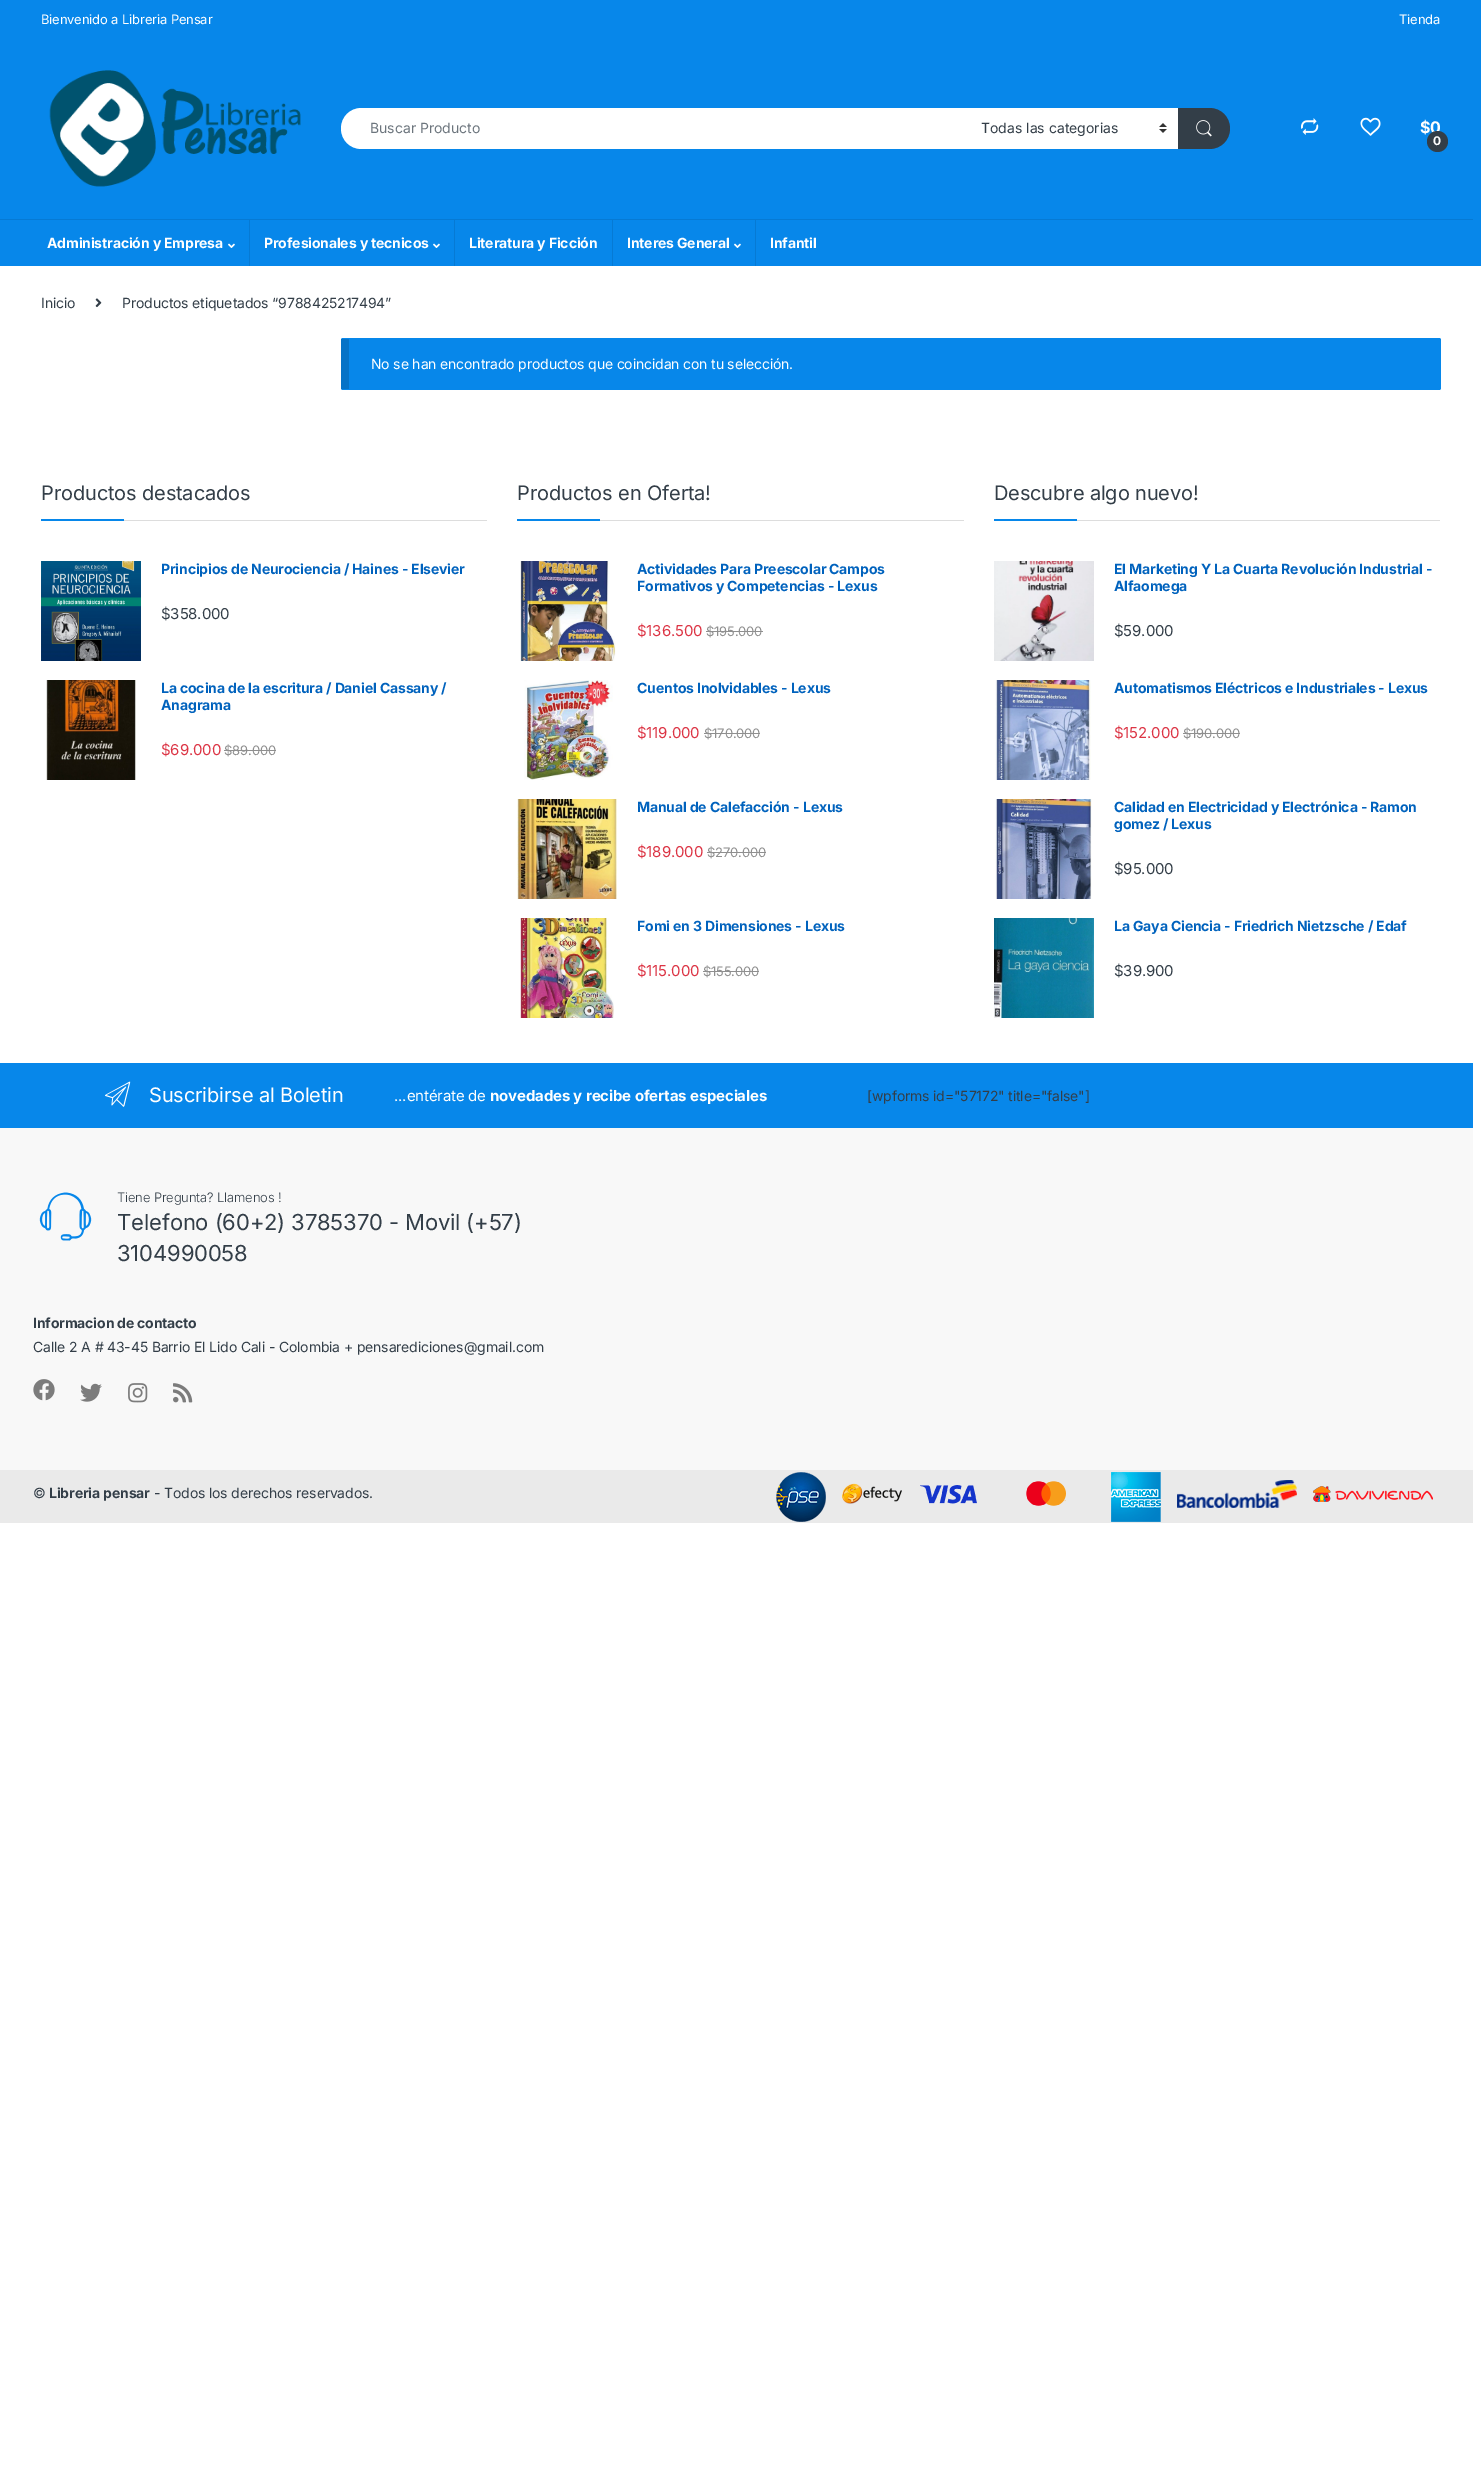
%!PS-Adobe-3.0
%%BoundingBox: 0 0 1481 2477
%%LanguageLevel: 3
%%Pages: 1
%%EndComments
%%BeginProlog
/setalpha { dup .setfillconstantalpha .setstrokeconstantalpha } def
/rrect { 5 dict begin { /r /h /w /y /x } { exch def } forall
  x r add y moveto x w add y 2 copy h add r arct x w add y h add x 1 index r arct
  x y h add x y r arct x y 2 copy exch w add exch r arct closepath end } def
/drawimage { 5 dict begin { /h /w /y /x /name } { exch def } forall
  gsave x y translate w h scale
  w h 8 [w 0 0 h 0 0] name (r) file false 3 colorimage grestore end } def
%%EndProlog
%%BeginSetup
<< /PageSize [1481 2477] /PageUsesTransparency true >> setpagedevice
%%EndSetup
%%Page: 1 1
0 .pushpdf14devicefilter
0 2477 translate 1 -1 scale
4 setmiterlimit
1 setgray
0 0 1481 2477 rectfill
0.027 0.529 0.918 setrgbcolor
0 0 1481 266 rectfill
(images/1.raw) 49 70 252 117 drawimage
1 setgray
newpath 361.5 108 moveto 970 108 lineto 970 149 lineto 361.5 149 lineto 350 149 341 140 341 128.5 curveto 341 117 350 108 361.5 108 curveto closepath fill
970 108 208 41 rectfill
(images/2.raw) 1159 123 8 10 drawimage
0.2 0.243 0.282 setrgbcolor
newpath 1178 108 moveto 1209.5 108 lineto 1221 108 1230 117 1230 128.5 curveto 1230 140 1221 149 1209.5 149 curveto 1178 149 lineto closepath fill
(images/3.raw) 1196 120 16 17 drawimage
(images/4.raw) 1301 118 18 17 drawimage
(images/5.raw) 1360 117 21 19 drawimage
0.024 0.478 0.831 setrgbcolor
0 219 1473 1 rectfill
(images/6.raw) 228 243 7 5 drawimage
249 220 1 46 rectfill
(images/6.raw) 433 243 7 5 drawimage
454 220 1 46 rectfill
612 220 1 46 rectfill
(images/6.raw) 734 243 7 5 drawimage
755 220 1 46 rectfill
(images/7.raw) 95 298 7 10 drawimage
0.027 0.529 0.918 setrgbcolor
341 338 1100 52 2 rrect fill
0.15 setalpha
0 setgray
341 339 8 50 rectfill
1 setalpha
0.867 setgray
124 520 363 1 rectfill
0.027 0.529 0.918 setrgbcolor
41 519 83 2 rectfill
(images/8.raw) 41 561 100 100 drawimage
(images/9.raw) 46 680 90 100 drawimage
0.561 setgray
224 750 52 1 rectfill
0.867 setgray
600 520 364 1 rectfill
0.027 0.529 0.918 setrgbcolor
517 519 83 2 rectfill
(images/10.raw) 520 561 96 100 drawimage
0.561 setgray
706 631 57 1 rectfill
(images/11.raw) 524 680 89 100 drawimage
704 733 56 1 rectfill
(images/12.raw) 517 799 100 100 drawimage
707 852 59 1 rectfill
(images/13.raw) 520 918 94 100 drawimage
703 971 56 1 rectfill
0.867 setgray
1077 520 363 1 rectfill
0.027 0.529 0.918 setrgbcolor
994 519 83 2 rectfill
(images/14.raw) 994 561 100 100 drawimage
(images/15.raw) 995 680 96 100 drawimage
0.561 setgray
1183 733 57 1 rectfill
(images/16.raw) 995 799 97 100 drawimage
(images/17.raw) 994 918 100 100 drawimage
0.027 0.529 0.918 setrgbcolor
0 1063 1473 65 rectfill
(images/18.raw) 105 1081 26 26 drawimage
0.973 setgray
0 1128 1473 342 rectfill
(images/19.raw) 39 1192 53 49 drawimage
(images/20.raw) 33 1379 22 22 drawimage
(images/21.raw) 80 1383 22 19 drawimage
(images/22.raw) 128 1383 20 20 drawimage
(images/23.raw) 173 1383 20 20 drawimage
0.918 setgray
0 1470 1473 53 rectfill
(images/24.raw) 776 1472 50 50 drawimage
(images/25.raw) 842 1483 60 21 drawimage
(images/26.raw) 920 1485 57 19 drawimage
(images/27.raw) 1026 1481 40 25 drawimage
(images/28.raw) 1111 1472 50 50 drawimage
(images/29.raw) 1177 1480 120 28 drawimage
(images/30.raw) 1313 1486 120 16 drawimage
/Inter-Regular [13 0 0 -13 0 0] selectfont
1 setgray
41 24 moveto -0.15 0 (Bienvenido a Libreria Pensar) ashow
1399 24 moveto -0.15 0 (Tienda) ashow
/Inter-Regular [14 0 0 -14 0 0] selectfont
0.424 0.459 0.49 setrgbcolor
370 133 moveto (Buscar Producto) show
0.2 0.243 0.282 setrgbcolor
981 133 moveto (Todas las categorias) show
/Inter-Bold [16 0 0 -16 0 0] selectfont
1 setgray
1420 133 moveto -0.15 0 ($0) ashow
0.2 0.243 0.282 setrgbcolor
newpath 1437.5 141.5 10.5 0 360 arc closepath fill
/Inter-Bold [12 0 0 -12 0 0] selectfont
1 setgray
1433 145 moveto -0.15 0 (0) ashow
/Inter-Bold [14 0 0 -14 0 0] selectfont
47 248 moveto -0.15 0 (Administración y Empresa) ashow
264 248 moveto -0.15 0 (Profesionales y tecnicos) ashow
469 248 moveto -0.15 0 (Literatura y Ficción) ashow
627 248 moveto -0.15 0 (Interes General) ashow
770 248 moveto -0.15 0 (Infantil) ashow
/Inter-Regular [14 0 0 -14 0 0] selectfont
0.2 0.243 0.282 setrgbcolor
41 308 moveto -0.15 0 (Inicio) ashow
122 308 moveto -0.15 0 (Productos etiquetados “9788425217494”) ashow
1 setgray
371 369 moveto -0.15 0 (No se han encontrado productos que coincidan con tu selección.) ashow
/Inter-Regular [20 0 0 -20 0 0] selectfont
0.2 0.243 0.282 setrgbcolor
41 500 moveto -0.15 0 (Productos destacados) ashow
/Inter-Bold [14 0 0 -14 0 0] selectfont
0 0.384 0.741 setrgbcolor
161 574 moveto -0.15 0 (Principios de Neurociencia / Haines - Elsevier) ashow
/Inter-Regular [15 0 0 -15 0 0] selectfont
0.2 0.243 0.282 setrgbcolor
161 619 moveto -0.15 0 ($358.000) ashow
/Inter-Bold [14 0 0 -14 0 0] selectfont
0 0.384 0.741 setrgbcolor
161 693 moveto -0.15 0 (La cocina de la escritura / Daniel Cassany /) ashow
161 710 moveto -0.15 0 (Anagrama) ashow
/Inter-Regular [15 0 0 -15 0 0] selectfont
0.863 0.208 0.271 setrgbcolor
161 755 moveto -0.15 0 ($69.000) ashow
/Inter-Regular [13 0 0 -13 0 0] selectfont
0.561 setgray
224 755 moveto -0.15 0 ($89.000) ashow
/Inter-Regular [20 0 0 -20 0 0] selectfont
0.2 0.243 0.282 setrgbcolor
517 500 moveto -0.15 0 (Productos en Oferta!) ashow
/Inter-Bold [14 0 0 -14 0 0] selectfont
0 0.384 0.741 setrgbcolor
637 574 moveto -0.15 0 (Actividades Para Preescolar Campos) ashow
637 591 moveto -0.15 0 (Formativos y Competencias - Lexus) ashow
/Inter-Regular [15 0 0 -15 0 0] selectfont
0.863 0.208 0.271 setrgbcolor
637 636 moveto -0.15 0 ($136.500) ashow
/Inter-Regular [13 0 0 -13 0 0] selectfont
0.561 setgray
706 636 moveto -0.15 0 ($195.000) ashow
/Inter-Bold [14 0 0 -14 0 0] selectfont
0 0.384 0.741 setrgbcolor
637 693 moveto -0.15 0 (Cuentos Inolvidables - Lexus) ashow
/Inter-Regular [15 0 0 -15 0 0] selectfont
0.863 0.208 0.271 setrgbcolor
637 738 moveto -0.15 0 ($119.000) ashow
/Inter-Regular [13 0 0 -13 0 0] selectfont
0.561 setgray
704 738 moveto -0.15 0 ($170.000) ashow
/Inter-Bold [14 0 0 -14 0 0] selectfont
0 0.384 0.741 setrgbcolor
637 812 moveto -0.15 0 (Manual de Calefacción - Lexus) ashow
/Inter-Regular [15 0 0 -15 0 0] selectfont
0.863 0.208 0.271 setrgbcolor
637 857 moveto -0.15 0 ($189.000) ashow
/Inter-Regular [13 0 0 -13 0 0] selectfont
0.561 setgray
707 857 moveto -0.15 0 ($270.000) ashow
/Inter-Bold [14 0 0 -14 0 0] selectfont
0 0.384 0.741 setrgbcolor
637 931 moveto -0.15 0 (Fomi en 3 Dimensiones - Lexus) ashow
/Inter-Regular [15 0 0 -15 0 0] selectfont
0.863 0.208 0.271 setrgbcolor
637 976 moveto -0.15 0 ($115.000) ashow
/Inter-Regular [13 0 0 -13 0 0] selectfont
0.561 setgray
703 976 moveto -0.15 0 ($155.000) ashow
/Inter-Regular [20 0 0 -20 0 0] selectfont
0.2 0.243 0.282 setrgbcolor
994 500 moveto -0.15 0 (Descubre algo nuevo!) ashow
/Inter-Bold [14 0 0 -14 0 0] selectfont
0 0.384 0.741 setrgbcolor
1114 574 moveto -0.15 0 (El Marketing Y La Cuarta Revolución Industrial -) ashow
1114 591 moveto -0.15 0 (Alfaomega) ashow
/Inter-Regular [15 0 0 -15 0 0] selectfont
0.2 0.243 0.282 setrgbcolor
1114 636 moveto -0.15 0 ($59.000) ashow
/Inter-Bold [14 0 0 -14 0 0] selectfont
0 0.384 0.741 setrgbcolor
1114 693 moveto -0.15 0 (Automatismos Eléctricos e Industriales - Lexus) ashow
/Inter-Regular [15 0 0 -15 0 0] selectfont
0.863 0.208 0.271 setrgbcolor
1114 738 moveto -0.15 0 ($152.000) ashow
/Inter-Regular [13 0 0 -13 0 0] selectfont
0.561 setgray
1183 738 moveto -0.15 0 ($190.000) ashow
/Inter-Bold [14 0 0 -14 0 0] selectfont
0 0.384 0.741 setrgbcolor
1114 812 moveto -0.15 0 (Calidad en Electricidad y Electrónica - Ramon) ashow
1114 829 moveto -0.15 0 (gomez / Lexus) ashow
/Inter-Regular [15 0 0 -15 0 0] selectfont
0.2 0.243 0.282 setrgbcolor
1114 874 moveto -0.15 0 ($95.000) ashow
/Inter-Bold [14 0 0 -14 0 0] selectfont
0 0.384 0.741 setrgbcolor
1114 931 moveto -0.15 0 (La Gaya Ciencia - Friedrich Nietzsche / Edaf) ashow
/Inter-Regular [15 0 0 -15 0 0] selectfont
0.2 0.243 0.282 setrgbcolor
1114 976 moveto -0.15 0 ($39.900) ashow
/Inter-Regular [20 0 0 -20 0 0] selectfont
1 setgray
149 1102 moveto -0.15 0 (Suscribirse al Boletin) ashow
/Inter-Regular [15 0 0 -15 0 0] selectfont
394 1101 moveto -0.15 0 (...entérate de) ashow
/Inter-Bold [15 0 0 -15 0 0] selectfont
490 1101 moveto -0.15 0 (novedades y recibe ofertas especiales) ashow
/Inter-Regular [14 0 0 -14 0 0] selectfont
0.2 0.243 0.282 setrgbcolor
867 1101 moveto -0.15 0 ([wpforms id="57172" title="false"]) ashow
/Inter-Light [13 0 0 -13 0 0] selectfont
117 1202 moveto -0.15 0 (Tiene Pregunta? Llamenos !) ashow
/Inter-Regular [22 0 0 -22 0 0] selectfont
117 1230 moveto -0.15 0 (Telefono \(60+2\) 3785370 - Movil \(+57\)) ashow
117 1261 moveto -0.15 0 (3104990058) ashow
/Inter-Bold [14 0 0 -14 0 0] selectfont
33 1328 moveto -0.15 0 (Informacion de contacto) ashow
/Inter-Regular [14 0 0 -14 0 0] selectfont
33 1352 moveto -0.15 0 (Calle 2 A # 43-45 Barrio El Lido Cali - Colombia + pensarediciones@gmail.com) ashow
33 1498 moveto -0.15 0 (©) ashow
/Inter-Bold [14 0 0 -14 0 0] selectfont
49 1498 moveto -0.15 0 (Libreria pensar) ashow
/Inter-Regular [14 0 0 -14 0 0] selectfont
154 1498 moveto -0.15 0 (- Todos los derechos reservados.) ashow
.poppdf14devicefilter showpage
%%EOF
